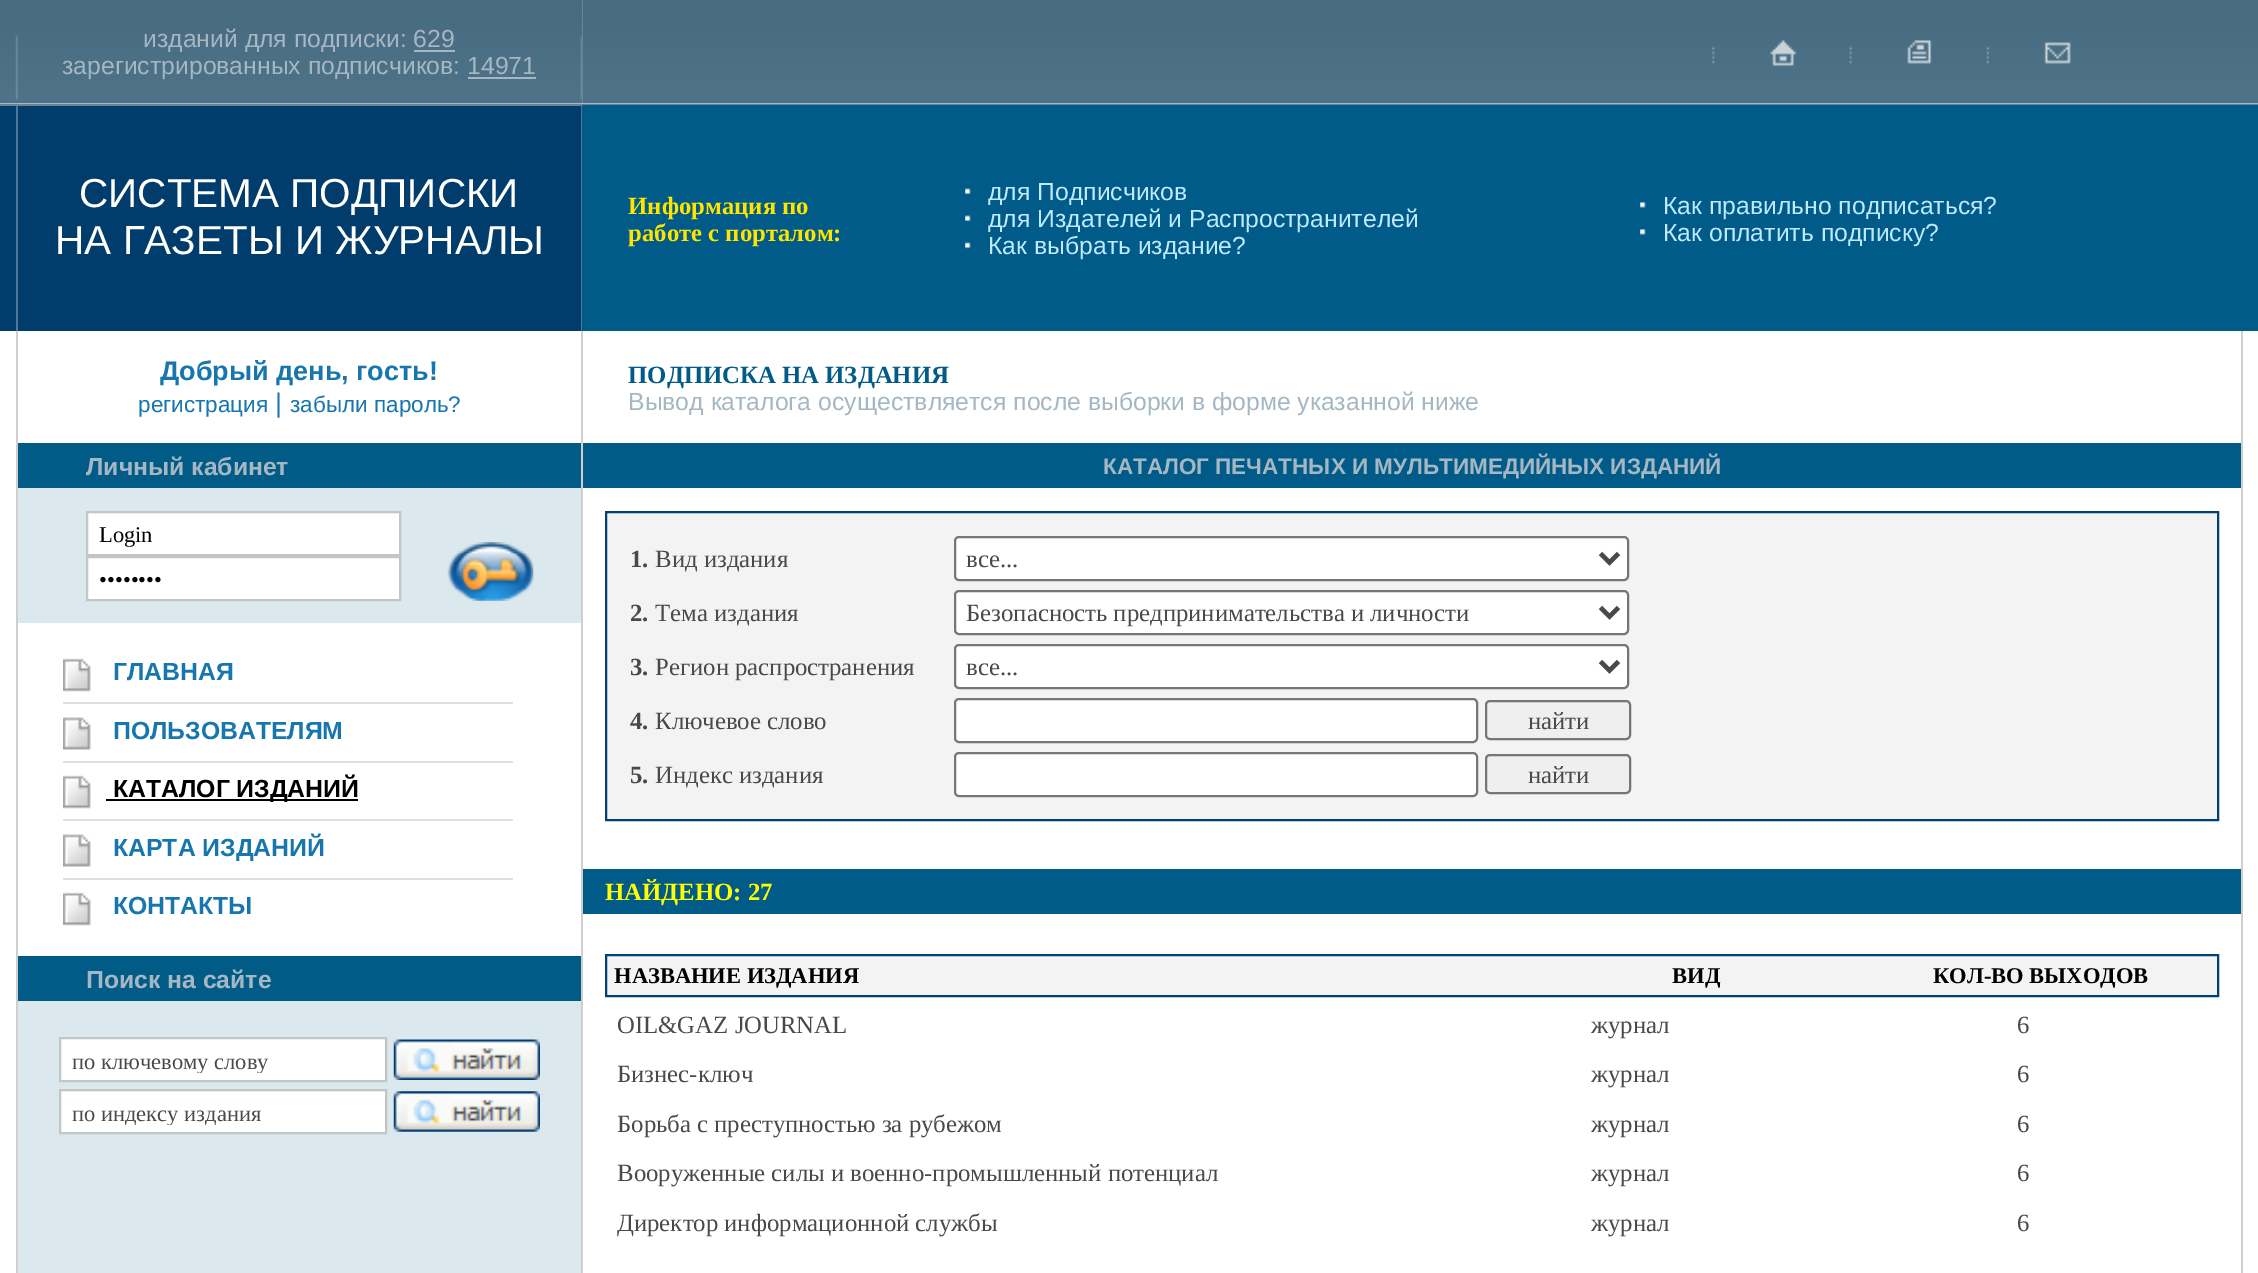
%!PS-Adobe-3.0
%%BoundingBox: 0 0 2258 1273
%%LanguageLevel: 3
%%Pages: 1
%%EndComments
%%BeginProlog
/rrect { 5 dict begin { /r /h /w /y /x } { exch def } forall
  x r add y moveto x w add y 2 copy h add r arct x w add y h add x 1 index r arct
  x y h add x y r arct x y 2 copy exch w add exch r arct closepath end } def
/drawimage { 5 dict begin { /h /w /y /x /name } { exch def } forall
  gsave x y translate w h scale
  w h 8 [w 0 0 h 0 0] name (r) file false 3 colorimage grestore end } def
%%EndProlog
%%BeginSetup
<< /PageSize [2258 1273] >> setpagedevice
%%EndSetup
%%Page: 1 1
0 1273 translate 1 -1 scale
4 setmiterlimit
1 setgray
0 0 2258 1273 rectfill
(images/1.raw) 0 0 583 104 drawimage
(images/2.raw) 15 35 3 65 drawimage
0.647 0.718 0.761 setrgbcolor
414 50 41 2 rectfill
468 77 68 2 rectfill
(images/4.raw) 582 0 1676 104 drawimage
(images/3.raw) 580 35 3 65 drawimage
(images/5.raw) 1712 46 3 18 drawimage
(images/6.raw) 1770 40 27 26 drawimage
(images/7.raw) 1849 46 3 18 drawimage
(images/8.raw) 1907 40 25 24 drawimage
(images/9.raw) 1986 46 3 18 drawimage
(images/10.raw) 2044 42 27 22 drawimage
0.412 0.522 0.584 setrgbcolor
0 104 2258 2 rectfill
0 0.239 0.427 setrgbcolor
0 106 16 225 rectfill
0.302 0.471 0.604 setrgbcolor
16 106 2 225 rectfill
0 0.239 0.427 setrgbcolor
18 106 563 225 rectfill
0.302 0.471 0.604 setrgbcolor
581 106 1 225 rectfill
0 0.357 0.533 setrgbcolor
582 105 1676 226 rectfill
(images/11.raw) 965 188 6 7 drawimage
(images/11.raw) 965 215 6 7 drawimage
(images/11.raw) 965 242 6 7 drawimage
(images/12.raw) 1640 202 6 6 drawimage
(images/12.raw) 1640 229 6 6 drawimage
0.812 setgray
16 331 2 942 rectfill
0 0.357 0.529 setrgbcolor
18 443 563 45 rectfill
0.859 0.91 0.933 setrgbcolor
18 488 563 135 rectfill
1 setgray
newpath 87 512 moveto 400 512 lineto 400 555 lineto 87 555 lineto closepath gsave fill grestore
0.761 0.776 0.78 setrgbcolor
2 setlinewidth
stroke
(images/13.raw) 447 542 87 59 drawimage
1 setgray
newpath 87 557 moveto 400 557 lineto 400 600 lineto 87 600 lineto closepath gsave fill grestore
0.761 0.776 0.78 setrgbcolor
stroke
(images/14.raw) 63 658 28 34 drawimage
0.878 setgray
63 702 450 2 rectfill
(images/15.raw) 63 717 28 33 drawimage
63 761 450 2 rectfill
(images/16.raw) 63 775 28 34 drawimage
0 setgray
106 799 252 2 rectfill
0.878 setgray
63 819 450 2 rectfill
(images/17.raw) 63 834 28 33 drawimage
63 878 450 2 rectfill
(images/14.raw) 63 892 28 34 drawimage
0 0.357 0.529 setrgbcolor
18 956 563 45 rectfill
0.859 0.91 0.933 setrgbcolor
18 1001 563 272 rectfill
1 setgray
newpath 60 1038 moveto 386 1038 lineto 386 1081 lineto 60 1081 lineto closepath gsave fill grestore
0.761 0.776 0.78 setrgbcolor
stroke
(images/18.raw) 393 1039 147 41 drawimage
1 setgray
newpath 60 1090 moveto 386 1090 lineto 386 1133 lineto 60 1133 lineto closepath gsave fill grestore
0.761 0.776 0.78 setrgbcolor
stroke
(images/19.raw) 393 1091 147 41 drawimage
0.812 setgray
581 331 2 942 rectfill
0 0.357 0.533 setrgbcolor
583 443 1658 45 rectfill
0.953 setgray
newpath 606 512 moveto 2218 512 lineto 2218 820 lineto 606 820 lineto closepath gsave fill grestore
0 0.259 0.451 setrgbcolor
stroke
1 setgray
955 537 673 43 4 rrect gsave fill grestore
0.463 setgray
stroke
0.286 setgray
4.5 setlinewidth
newpath 1600.5 553.5 moveto 1609.5 562.5 lineto 1618.5 553.5 lineto stroke
1 setgray
955 591 673 43 4 rrect gsave fill grestore
0.463 setgray
2 setlinewidth
stroke
0.286 setgray
4.5 setlinewidth
newpath 1600.5 607.5 moveto 1609.5 616.5 lineto 1618.5 607.5 lineto stroke
1 setgray
955 645 673 43 4 rrect gsave fill grestore
0.463 setgray
2 setlinewidth
stroke
0.286 setgray
4.5 setlinewidth
newpath 1600.5 661.5 moveto 1609.5 670.5 lineto 1618.5 661.5 lineto stroke
1 setgray
955 699 522 43 4 rrect gsave fill grestore
0.463 setgray
2 setlinewidth
stroke
0.937 setgray
1486 701 144 38 4 rrect gsave fill grestore
0.463 setgray
stroke
1 setgray
955 753 522 43 4 rrect gsave fill grestore
0.463 setgray
stroke
0.937 setgray
1486 755 144 38 4 rrect gsave fill grestore
0.463 setgray
stroke
0 0.357 0.533 setrgbcolor
583 869 1658 45 rectfill
0.953 setgray
newpath 606 955 moveto 2218 955 lineto 2218 996 lineto 606 996 lineto closepath gsave fill grestore
0 0.259 0.451 setrgbcolor
stroke
0.812 setgray
2241 331 2 942 rectfill
/LiberationSans-Regular [24.75 0 0 -24.75 0 0] selectfont
0.647 0.718 0.761 setrgbcolor
143 47 moveto (изданий для подписки: 629) show
62 74 moveto (зарегистрированных подписчиков: 14971) show
/LiberationSans-Regular [40.5 0 0 -40.5 0 0] selectfont
1 0.996 0.984 setrgbcolor
79 207 moveto (СИСТЕМА ПОДПИСКИ) show
55 254 moveto (НА ГАЗЕТЫ И ЖУРНАЛЫ) show
/LiberationSerif-Bold [24.75 0 0 -24.75 0 0] selectfont
1 0.894 0 setrgbcolor
628 214 moveto (Информация по) show
628 241 moveto (работе с порталом:) show
/LiberationSans-Regular [24.75 0 0 -24.75 0 0] selectfont
0.749 0.914 1 setrgbcolor
988 200 moveto (для Подписчиков) show
988 227 moveto (для Издателей и Распространителей) show
988 254 moveto (Как выбрать издание?) show
1663 214 moveto (Как правильно подписаться?) show
1663 241 moveto (Как оплатить подписку?) show
/LiberationSans-Bold [27 0 0 -27 0 0] selectfont
0.09 0.463 0.682 setrgbcolor
160 380 moveto (Добрый день, гость!) show
/LiberationSans-Regular [22.5 0 0 -22.5 0 0] selectfont
138 412 moveto (регистрация) show
/LiberationSans-Regular [27 0 0 -27 0 0] selectfont
275 412 moveto (|) show
/LiberationSans-Regular [22.5 0 0 -22.5 0 0] selectfont
290 412 moveto (забыли пароль?) show
/LiberationSans-Bold [24.75 0 0 -24.75 0 0] selectfont
0.647 0.718 0.761 setrgbcolor
86 475 moveto (Личный кабинет) show
/LiberationSerif-Regular [22.5 0 0 -22.5 0 0] selectfont
0 setgray
99 542 moveto (Login) show
99 587 moveto (••••••••) show
/LiberationSans-Bold [24.75 0 0 -24.75 0 0] selectfont
0.09 0.463 0.682 setrgbcolor
113 680 moveto (ГЛАВНАЯ) show
113 739 moveto (ПОЛЬЗОВАТЕЛЯМ) show
0 setgray
113 797 moveto (КАТАЛОГ ИЗДАНИЙ) show
0.09 0.463 0.682 setrgbcolor
113 856 moveto (КАРТА ИЗДАНИЙ) show
113 914 moveto (КОНТАКТЫ) show
0.647 0.718 0.761 setrgbcolor
86 988 moveto (Поиск на сайте) show
gsave
72 1049 302 24 rectclip
/LiberationSerif-Regular [22.5 0 0 -22.5 0 0] selectfont
0.286 setgray
72 1069 moveto (по ключевому слову) show
grestore
gsave
72 1100 302 25 rectclip
/LiberationSerif-Regular [22.5 0 0 -22.5 0 0] selectfont
0.286 setgray
72 1121 moveto (по индексу издания) show
grestore
/LiberationSerif-Bold [24.75 0 0 -24.75 0 0] selectfont
0 0.357 0.533 setrgbcolor
628 383 moveto (ПОДПИСКА НА ИЗДАНИЯ) show
/LiberationSans-Regular [24.75 0 0 -24.75 0 0] selectfont
0.647 0.718 0.761 setrgbcolor
628 410 moveto (Вывод каталога осуществляется после выборки в форме указанной ниже) show
/LiberationSans-Bold [22.5 0 0 -22.5 0 0] selectfont
1103 474 moveto (КАТАЛОГ ПЕЧАТНЫХ И МУЛЬТИМЕДИЙНЫХ ИЗДАНИЙ) show
/LiberationSerif-Bold [24.75 0 0 -24.75 0 0] selectfont
0.286 setgray
630 567 moveto (1.) show
/LiberationSerif-Regular [24.75 0 0 -24.75 0 0] selectfont
655 567 moveto (Вид издания) show
966 567 moveto (все...) show
/LiberationSerif-Bold [24.75 0 0 -24.75 0 0] selectfont
630 621 moveto (2.) show
/LiberationSerif-Regular [24.75 0 0 -24.75 0 0] selectfont
655 621 moveto (Тема издания) show
966 621 moveto (Безопасность предпринимательства и личности) show
/LiberationSerif-Bold [24.75 0 0 -24.75 0 0] selectfont
630 675 moveto (3.) show
/LiberationSerif-Regular [24.75 0 0 -24.75 0 0] selectfont
655 675 moveto (Регион распространения) show
966 675 moveto (все...) show
/LiberationSerif-Bold [24.75 0 0 -24.75 0 0] selectfont
630 729 moveto (4.) show
/LiberationSerif-Regular [24.75 0 0 -24.75 0 0] selectfont
655 729 moveto (Ключевое слово) show
1528 729 moveto (найти) show
/LiberationSerif-Bold [24.75 0 0 -24.75 0 0] selectfont
630 783 moveto (5.) show
/LiberationSerif-Regular [24.75 0 0 -24.75 0 0] selectfont
655 783 moveto (Индекс издания) show
1528 783 moveto (найти) show
/LiberationSerif-Bold [24.75 0 0 -24.75 0 0] selectfont
1 1 0 setrgbcolor
605 900 moveto (НАЙДЕНО: 27) show
/LiberationSerif-Bold [22.5 0 0 -22.5 0 0] selectfont
0 setgray
614 983 moveto (НАЗВАНИЕ ИЗДАНИЯ) show
1672 983 moveto (ВИД) show
1933 983 moveto (КОЛ-ВО ВЫХОДОВ) show
/LiberationSerif-Regular [24.75 0 0 -24.75 0 0] selectfont
0.286 setgray
617 1033 moveto (OIL&GAZ JOURNAL) show
1591 1033 moveto (журнал) show
2017 1033 moveto (6) show
617 1082 moveto (Бизнес-ключ) show
1591 1082 moveto (журнал) show
2017 1082 moveto (6) show
617 1132 moveto (Борьба с преступностью за рубежом) show
1591 1132 moveto (журнал) show
2017 1132 moveto (6) show
617 1181 moveto (Вооруженные силы и военно-промышленный потенциал) show
1591 1181 moveto (журнал) show
2017 1181 moveto (6) show
617 1231 moveto (Директор информационной службы) show
1591 1231 moveto (журнал) show
2017 1231 moveto (6) show
showpage
%%EOF
